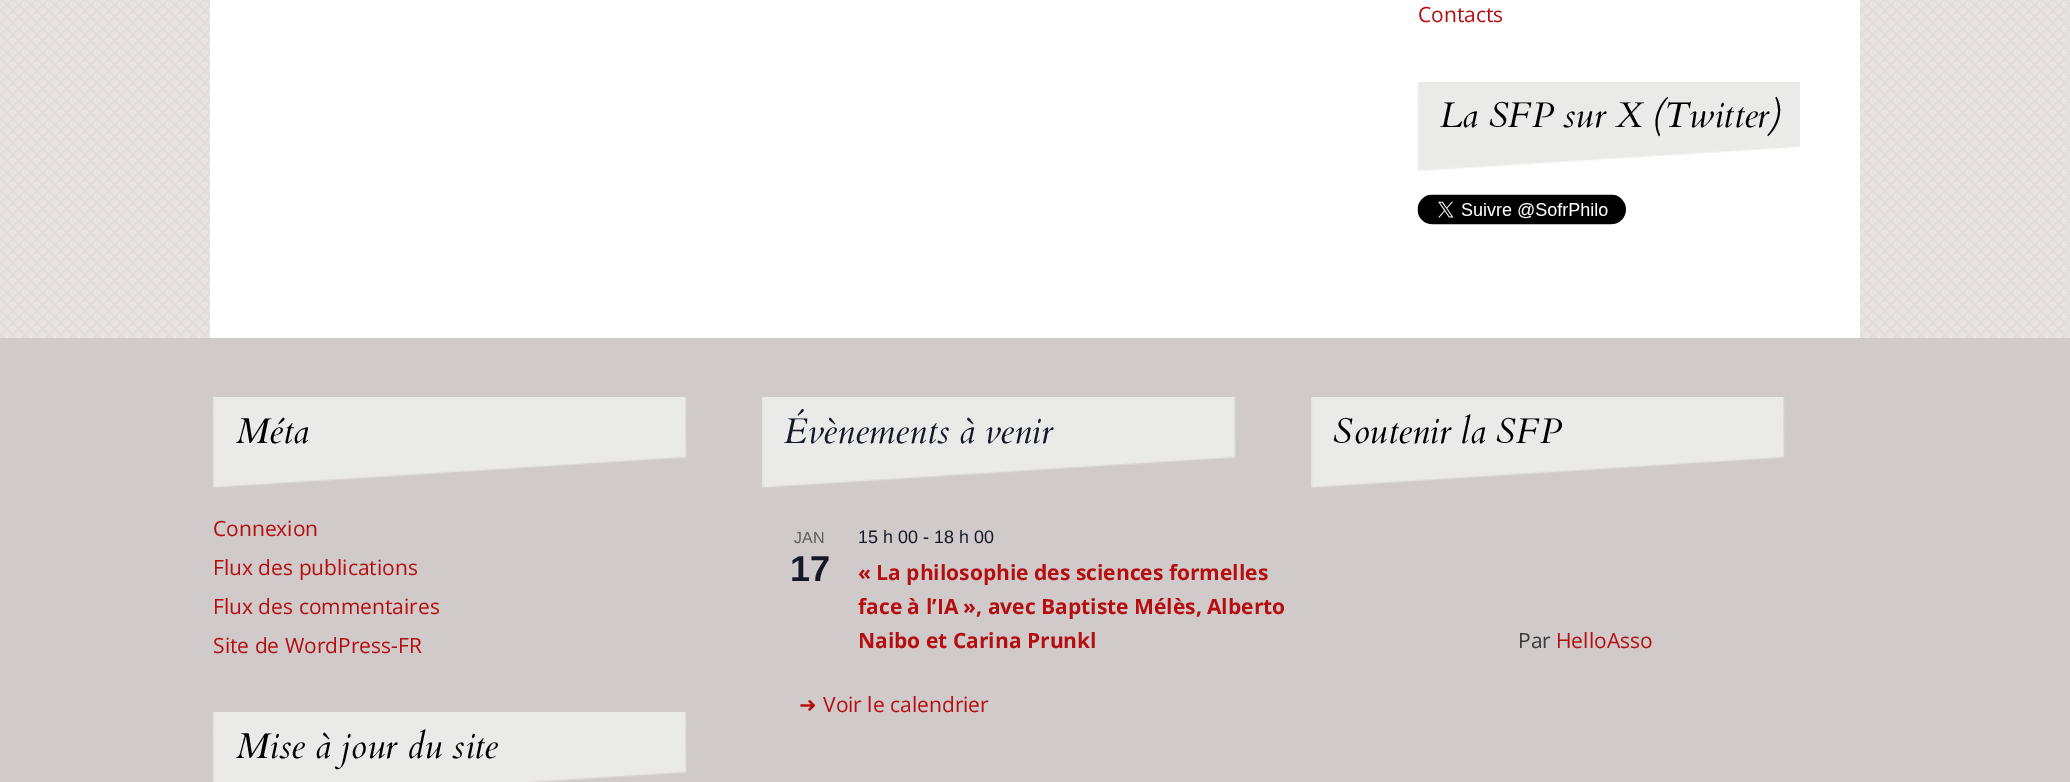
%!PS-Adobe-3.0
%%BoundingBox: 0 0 2070 782
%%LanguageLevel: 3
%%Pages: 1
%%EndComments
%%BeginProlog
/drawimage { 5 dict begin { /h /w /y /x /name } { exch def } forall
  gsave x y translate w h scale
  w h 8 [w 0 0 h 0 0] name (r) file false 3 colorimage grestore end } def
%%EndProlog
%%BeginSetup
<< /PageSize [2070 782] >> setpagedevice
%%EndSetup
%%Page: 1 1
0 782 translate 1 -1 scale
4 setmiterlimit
1 setgray
0 0 2070 782 rectfill
(images/1.raw) 0 0 2070 338 drawimage
210 0 1650 338 rectfill
(images/2.raw) 1417 82 383 90 drawimage
(images/3.raw) 1417 194 209 31 drawimage
0.82 0.792 0.792 setrgbcolor
0 338 2070 444 rectfill
(images/4.raw) 213 397 474 91 drawimage
(images/5.raw) 213 712 474 70 drawimage
(images/4.raw) 762 397 474 91 drawimage
(images/6.raw) 1311 397 474 91 drawimage
/OpenSans-Regular [21 0 0 -21 0 0] selectfont
0.714 0.051 0.059 setrgbcolor
1418 22 moveto (Contacts) show
/Cardo-Italic [35.75 0 0 -35.75 0 0] selectfont
0 setgray
1440 127 moveto (La SFP sur X \(Twitter\)) show
236 443 moveto (Méta) show
/OpenSans-Regular [21 0 0 -21 0 0] selectfont
0.714 0.051 0.059 setrgbcolor
213 536 moveto (Connexion) show
213 575 moveto (Flux des publications) show
213 614 moveto (Flux des commentaires) show
213 653 moveto (Site de WordPress-FR) show
/Cardo-Italic [35.75 0 0 -35.75 0 0] selectfont
0 setgray
236 758 moveto (Mise à jour du site) show
0.078 0.094 0.153 setrgbcolor
784 443 moveto (Évènements à venir) show
/LiberationSans-Regular [16 0 0 -16 0 0] selectfont
0.365 setgray
794 543 moveto (JAN) show
/LiberationSans-Bold [36 0 0 -36 0 0] selectfont
0.078 0.094 0.153 setrgbcolor
790 581 moveto (17) show
/LiberationSans-Regular [18 0 0 -18 0 0] selectfont
858 543 moveto (15 h 00 - 18 h 00) show
/OpenSans-Bold [21 0 0 -21 0 0] selectfont
0.714 0.051 0.059 setrgbcolor
858 580 moveto (« La philosophie des sciences formelles) show
858 614 moveto (face à l’IA », avec Baptiste Mélès, Alberto) show
858 648 moveto (Naibo et Carina Prunkl) show
/DejaVuSans-Regular [21 0 0 -21 0 0] selectfont
799 712 moveto (➜) show
/OpenSans-Regular [21 0 0 -21 0 0] selectfont
823 712 moveto (Voir le calendrier) show
/Cardo-Italic [35.75 0 0 -35.75 0 0] selectfont
0 setgray
1333 443 moveto (Soutenir la SFP) show
/OpenSans-Regular [21 0 0 -21 0 0] selectfont
0.227 setgray
1518 648 moveto (Par) show
0.714 0.051 0.059 setrgbcolor
1556 648 moveto (HelloAsso) show
showpage
%%EOF
